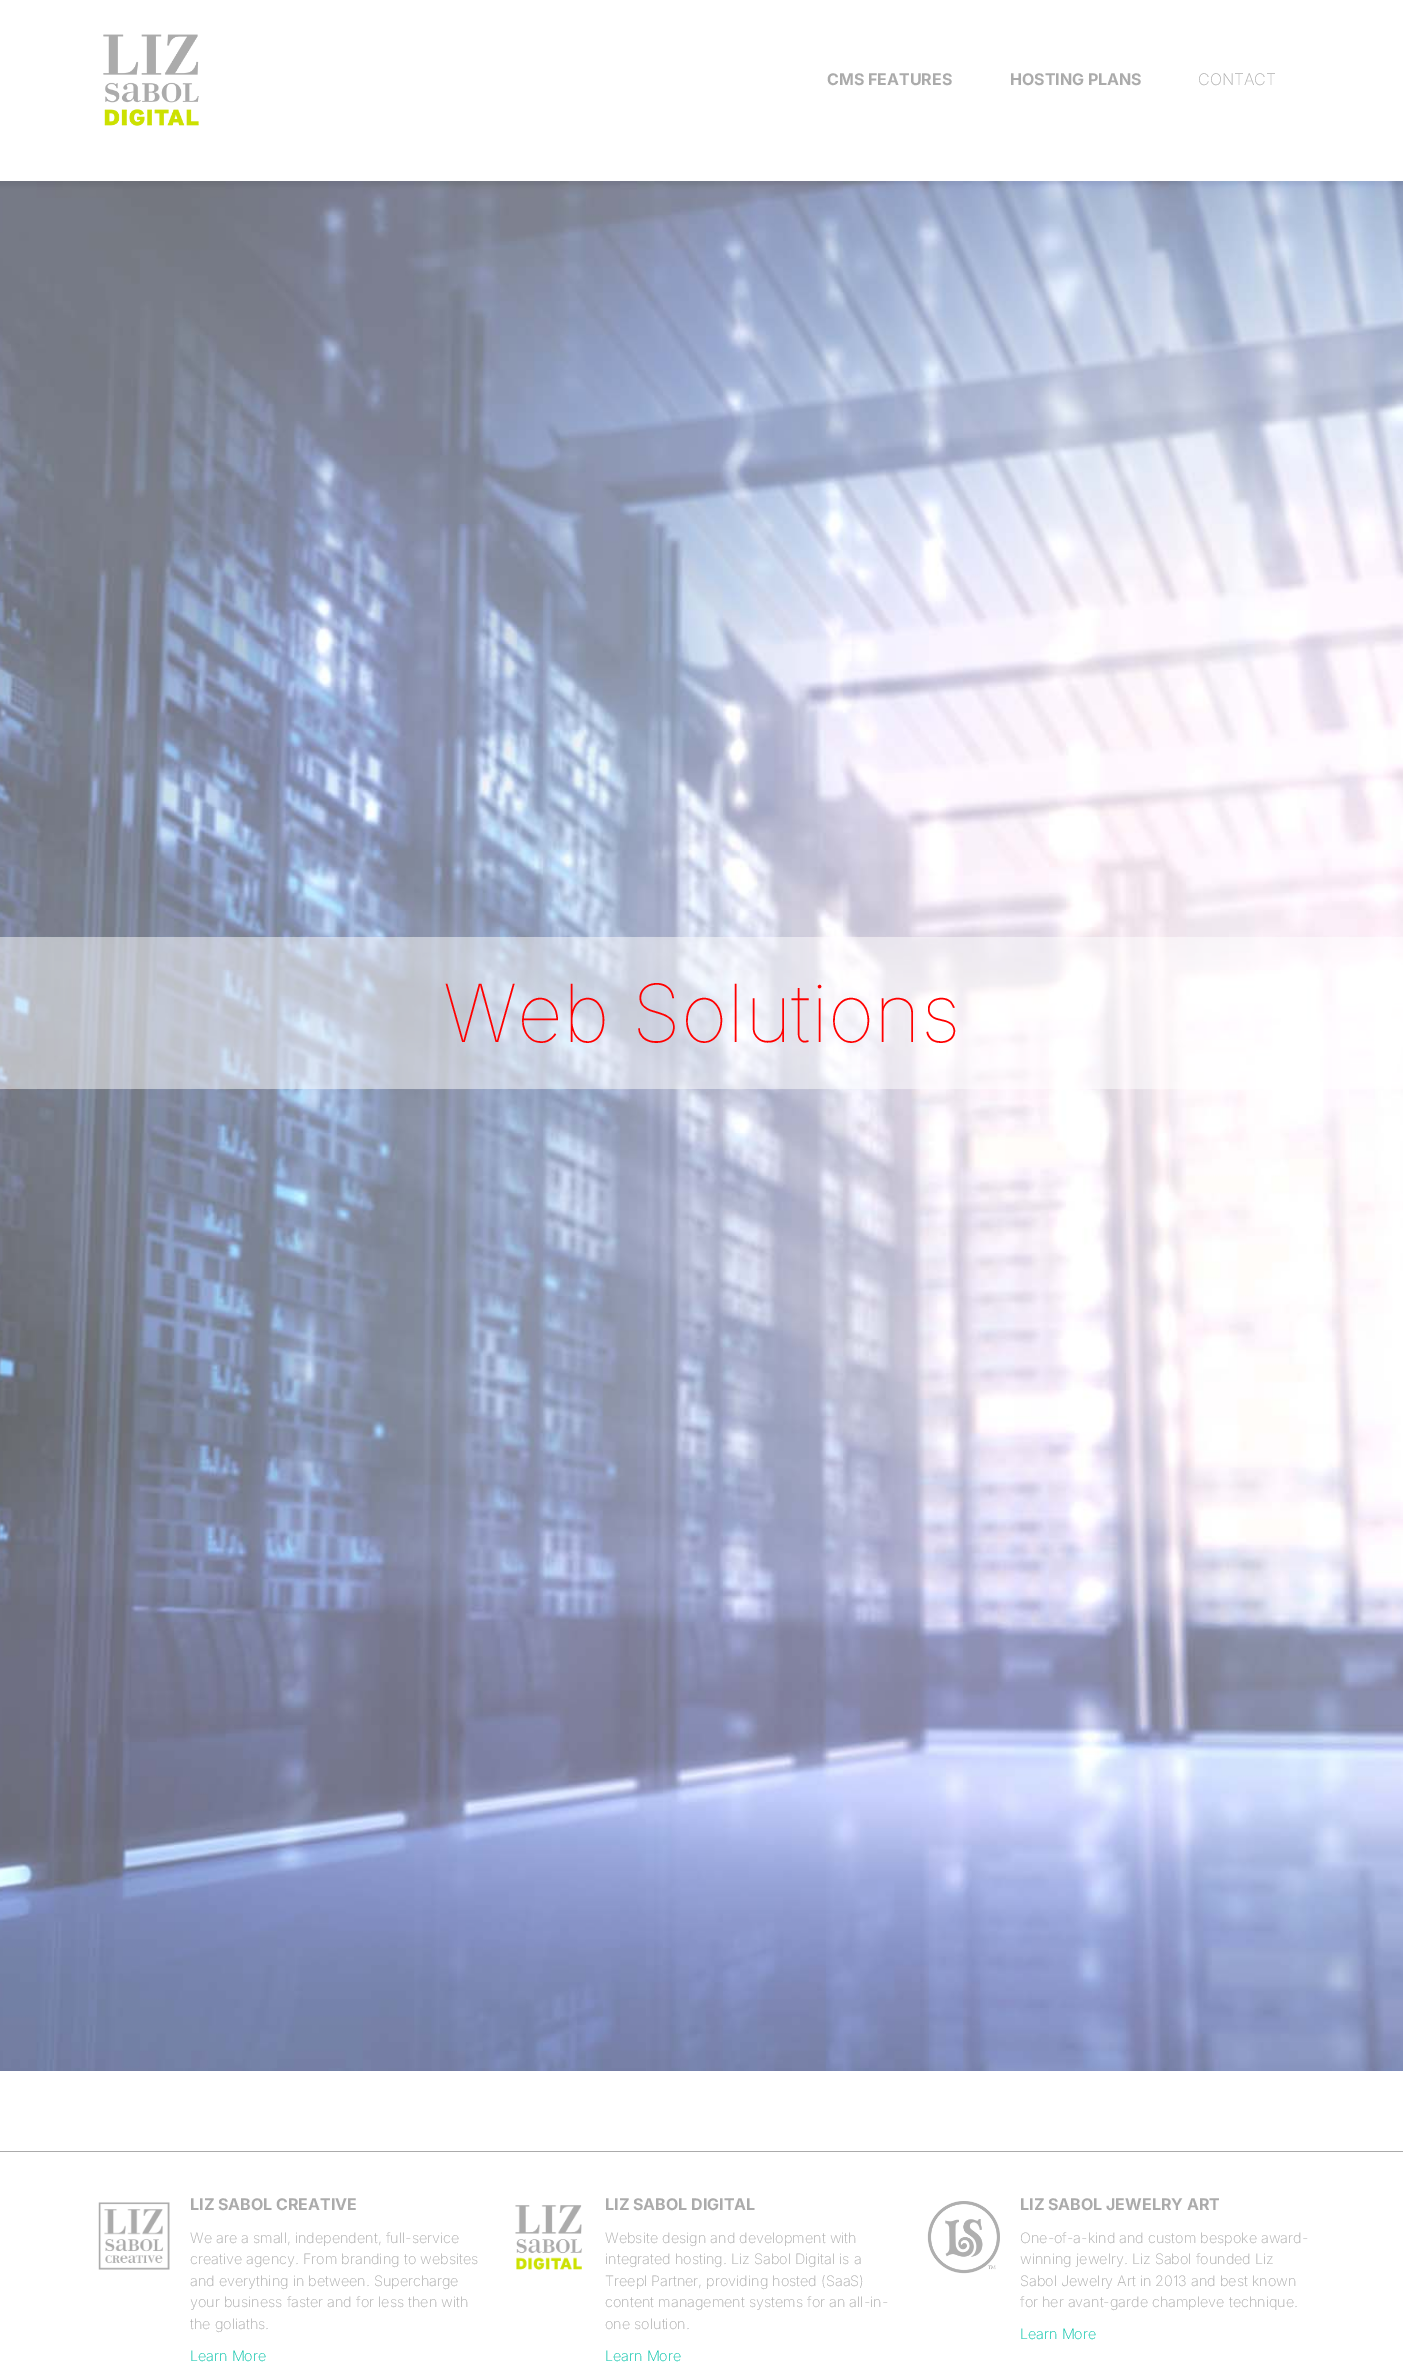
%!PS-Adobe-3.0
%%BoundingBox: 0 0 1403 2362
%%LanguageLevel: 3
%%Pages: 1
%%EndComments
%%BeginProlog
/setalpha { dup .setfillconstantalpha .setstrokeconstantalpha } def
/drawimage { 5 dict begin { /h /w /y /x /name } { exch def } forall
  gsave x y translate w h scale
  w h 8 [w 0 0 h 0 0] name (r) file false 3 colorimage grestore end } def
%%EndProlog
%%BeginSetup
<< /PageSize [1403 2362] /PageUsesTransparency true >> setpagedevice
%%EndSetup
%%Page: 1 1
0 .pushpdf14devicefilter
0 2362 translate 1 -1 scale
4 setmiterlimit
1 setgray
0 0 1403 2362 rectfill
(images/1.raw) 103 34 96 92 drawimage
(images/2.raw) 0 181 1403 1890 drawimage
0.5 setalpha
0 937 1403 152 rectfill
1 setalpha
0.671 setgray
0 2151 1403 1 rectfill
(images/3.raw) 98 2202 72 68 drawimage
(images/4.raw) 515 2205 67 65 drawimage
(images/5.raw) 927 2201 73 73 drawimage
/Inter-Bold [16 0 0 -16 0 0] selectfont
827 85 moveto (CMS FEATURES) show
1010 85 moveto (HOSTING PLANS) show
/Inter-ExtraLight [16 0 0 -16 0 0] selectfont
1198 85 moveto (CONTACT) show
/Inter-Thin [80 0 0 -80 0 0] selectfont
1 0 0 setrgbcolor
443 1042 moveto (Web Solutions) show
/Inter-Bold [16 0 0 -16 0 0] selectfont
0.671 setgray
190 2210 moveto (LIZ SABOL CREATIVE) show
/Inter-ExtraLight [14.4 0 0 -14.4 0 0] selectfont
190 2243 moveto (We are a small, independent, full-service) show
190 2264 moveto (creative agency. From branding to websites) show
190 2286 moveto (and everything in between. Supercharge) show
190 2307 moveto (your business faster and for less then with) show
190 2329 moveto (the goliaths.) show
0 0.757 0.651 setrgbcolor
190 2361 moveto (Learn More) show
/Inter-Bold [16 0 0 -16 0 0] selectfont
0.671 setgray
605 2210 moveto (LIZ SABOL DIGITAL) show
/Inter-ExtraLight [14.4 0 0 -14.4 0 0] selectfont
605 2243 moveto (Website design and development with) show
605 2264 moveto (integrated hosting. Liz Sabol Digital is a) show
605 2286 moveto (Treepl Partner, providing hosted \(SaaS\)) show
605 2307 moveto (content management systems for an all-in-) show
605 2329 moveto (one solution.) show
0 0.757 0.651 setrgbcolor
605 2361 moveto (Learn More) show
/Inter-Bold [16 0 0 -16 0 0] selectfont
0.671 setgray
1020 2210 moveto (LIZ SABOL JEWELRY ART) show
/Inter-ExtraLight [14.4 0 0 -14.4 0 0] selectfont
1020 2243 moveto (One-of-a-kind and custom bespoke award-) show
1020 2264 moveto (winning jewelry. Liz Sabol founded Liz) show
1020 2286 moveto (Sabol Jewelry Art in 2013 and best known) show
1020 2307 moveto (for her avant-garde champleve technique.) show
0 0.757 0.651 setrgbcolor
1020 2339 moveto (Learn More) show
.poppdf14devicefilter showpage
%%EOF
